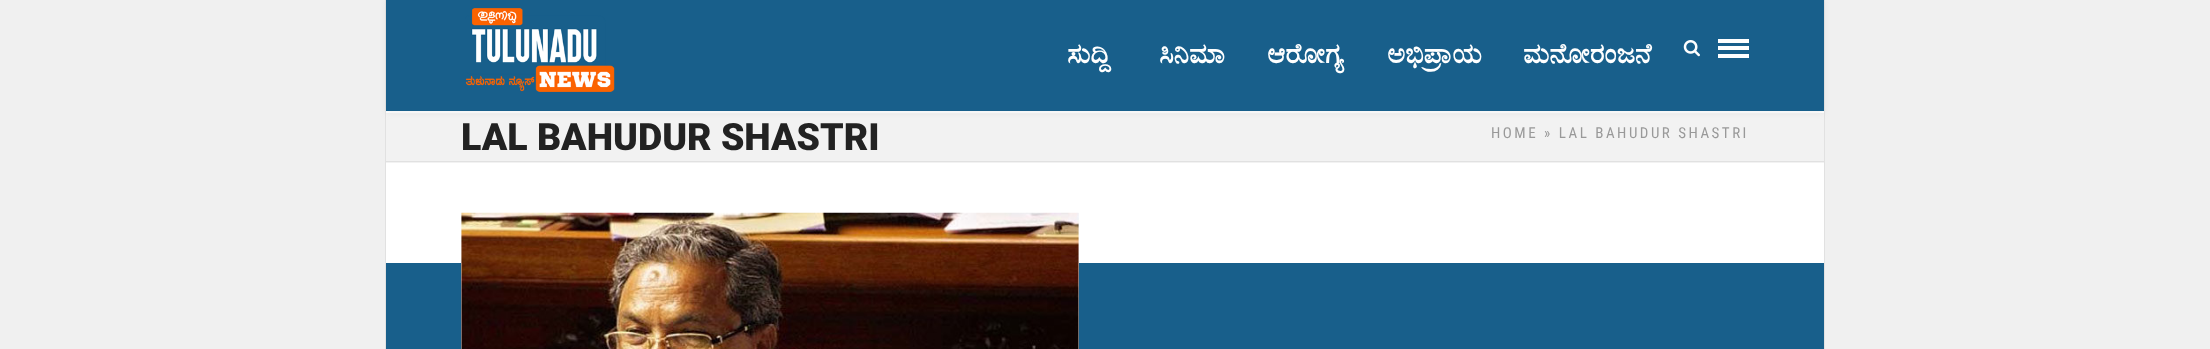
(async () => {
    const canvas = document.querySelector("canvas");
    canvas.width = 2210;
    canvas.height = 349;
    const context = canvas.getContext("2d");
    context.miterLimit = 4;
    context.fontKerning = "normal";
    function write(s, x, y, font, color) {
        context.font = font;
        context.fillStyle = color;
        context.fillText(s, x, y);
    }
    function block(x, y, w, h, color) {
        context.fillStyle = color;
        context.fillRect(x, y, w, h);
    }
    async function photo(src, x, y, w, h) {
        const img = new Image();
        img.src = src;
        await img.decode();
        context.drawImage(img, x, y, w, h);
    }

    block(0, 0, 2210, 349, "rgb(240, 240, 240)");
    block(386, 111, 1438, 152, "rgb(255, 255, 255)");
    context.strokeStyle = "rgb(225, 225, 225)";
    context.strokeRect(385.5, 0.5, 1439, 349);
    block(386, 113, 1438, 50, "rgb(242, 242, 242)");
    context.fillStyle = "rgba(190, 190, 190, 0.2)";
    context.filter = "blur(3px)";
    context.beginPath();
    context.rect(386, 1, 1438, 112);
    context.fill();
    context.filter = "none";
    block(386, 0, 1438, 111, "rgb(24, 95, 139)");
    await photo("media/1.png", 465, 8, 150, 84);
    write("ಸುದ್ದಿ", 1067, 63, "bold 27.5px FreeSerif", "rgb(255, 255, 255)");
    write("ಸಿನಿಮಾ", 1159, 63, "bold 27.5px FreeSerif", "rgb(255, 255, 255)");
    write("ಆರೋಗ್ಯ", 1267, 63, "bold 27.5px FreeSerif", "rgb(255, 255, 255)");
    write("ಅಭಿಪ್ರಾಯ", 1387, 63, "bold 27.5px FreeSerif", "rgb(255, 255, 255)");
    write("ಮನೋರಂಜನೆ", 1523, 63, "bold 27.5px FreeSerif", "rgb(255, 255, 255)");
    await photo("media/2.png", 1683, 40, 17, 17);
    block(1718, 39, 31, 4, "rgb(255, 255, 255)");
    block(1718, 46, 31, 4, "rgb(255, 255, 255)");
    block(1718, 54, 31, 4, "rgb(255, 255, 255)");
    block(386, 161, 1438, 1, "rgb(225, 225, 225)");
    write("LAL BAHUDUR SHASTRI", 461, 150, "900 37.5px Roboto", "rgb(34, 34, 34)");
    context.letterSpacing = "2.5px";
    write("HOME » LAL BAHUDUR SHASTRI", 1491, 138, "15px Roboto Condensed", "rgb(153, 153, 153)");
    block(386, 263, 1438, 86, "rgb(24, 95, 139)");
    block(461, 213, 618, 136, "rgb(249, 249, 249)");
    await photo("media/3.png", 461, 212, 618, 137);
})();
